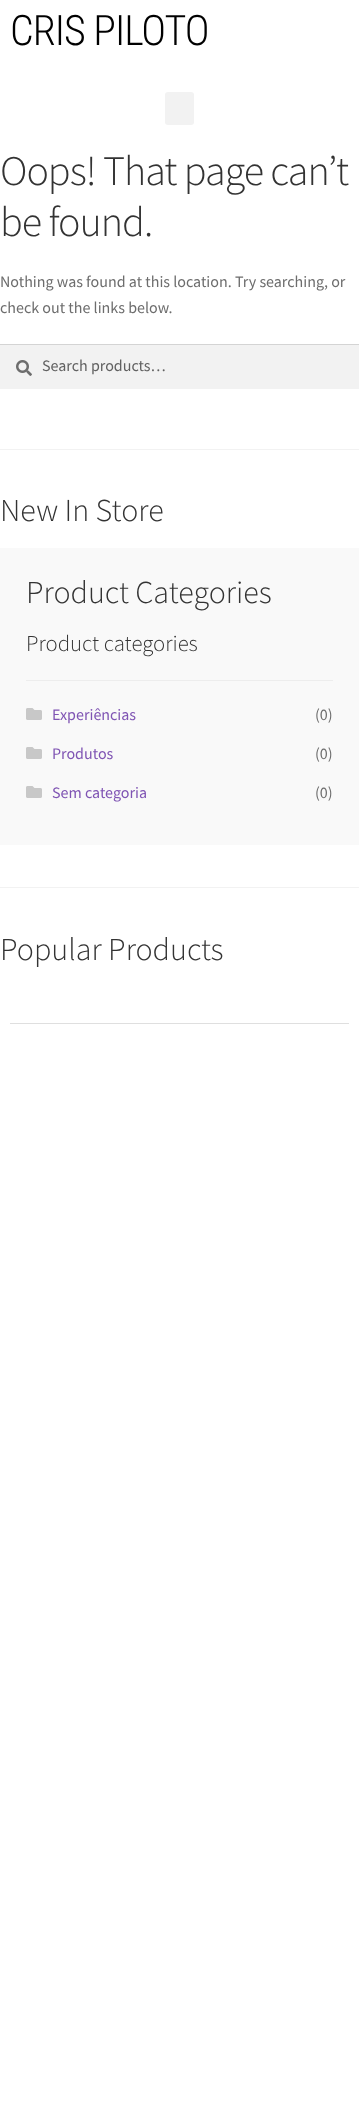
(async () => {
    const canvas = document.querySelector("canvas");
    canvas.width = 359;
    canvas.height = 2113;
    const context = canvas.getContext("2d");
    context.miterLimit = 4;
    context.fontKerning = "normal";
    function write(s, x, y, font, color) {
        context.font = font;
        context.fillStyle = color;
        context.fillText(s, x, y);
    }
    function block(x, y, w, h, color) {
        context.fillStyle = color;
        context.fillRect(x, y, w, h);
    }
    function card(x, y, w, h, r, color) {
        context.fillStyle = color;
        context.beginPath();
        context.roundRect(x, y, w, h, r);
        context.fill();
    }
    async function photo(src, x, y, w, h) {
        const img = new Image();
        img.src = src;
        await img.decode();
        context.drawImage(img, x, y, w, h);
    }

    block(0, 0, 359, 2113, "rgb(255, 255, 255)");
    context.letterSpacing = "-1px";
    write("CRIS PILOTO", 10, 45, "300 42px Roboto Condensed", "rgb(0, 0, 0)");
    card(165, 92, 29, 33, 3, "rgb(242, 242, 242)");
    write("Oops! That page can’t", 0, 185, "300 42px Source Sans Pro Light", "rgb(51, 51, 51)");
    write("be found.", 0, 236, "300 42px Source Sans Pro Light", "rgb(51, 51, 51)");
    context.letterSpacing = "0px";
    write("Nothing was found at this location. Try searching, or", 0, 287, "16px Source Sans Pro", "rgb(109, 109, 109)");
    write("check out the links below.", 0, 313, "16px Source Sans Pro", "rgb(109, 109, 109)");
    block(0, 345, 359, 44, "rgb(242, 242, 242)");
    await photo("media/1.png", 16, 360, 16, 16);
    block(0, 344, 359, 1, "rgb(212, 212, 212)");
    write("Search products…", 42, 371, "16px Source Sans Pro", "rgb(97, 97, 97)");
    block(0, 449, 359, 1, "rgb(242, 242, 242)");
    block(0, 887, 359, 1, "rgb(242, 242, 242)");
    write("New In Store", 0, 521, "300 32px Source Sans Pro Light", "rgb(51, 51, 51)");
    block(0, 548, 359, 297, "rgb(249, 249, 249)");
    write("Product Categories", 26, 603, "300 32px Source Sans Pro Light", "rgb(51, 51, 51)");
    block(26, 680, 307, 1, "rgb(237, 237, 237)");
    write("Product categories", 26, 651, "300 22.75px Source Sans Pro Light", "rgb(51, 51, 51)");
    await photo("media/2.png", 26, 708, 16, 12);
    write("Experiências", 52, 720, "16px Source Sans Pro", "rgb(127, 84, 179)");
    write("(0)", 315, 720, "16px Source Sans Pro", "rgb(109, 109, 109)");
    await photo("media/2.png", 26, 747, 16, 12);
    write("Produtos", 52, 759, "16px Source Sans Pro", "rgb(127, 84, 179)");
    write("(0)", 315, 759, "16px Source Sans Pro", "rgb(109, 109, 109)");
    await photo("media/2.png", 26, 786, 16, 12);
    write("Sem categoria", 52, 798, "16px Source Sans Pro", "rgb(127, 84, 179)");
    write("(0)", 315, 798, "16px Source Sans Pro", "rgb(109, 109, 109)");
    write("Popular Products", 0, 960, "300 32px Source Sans Pro Light", "rgb(51, 51, 51)");
    block(10, 1023, 339, 1, "rgb(223, 223, 223)");
})();
